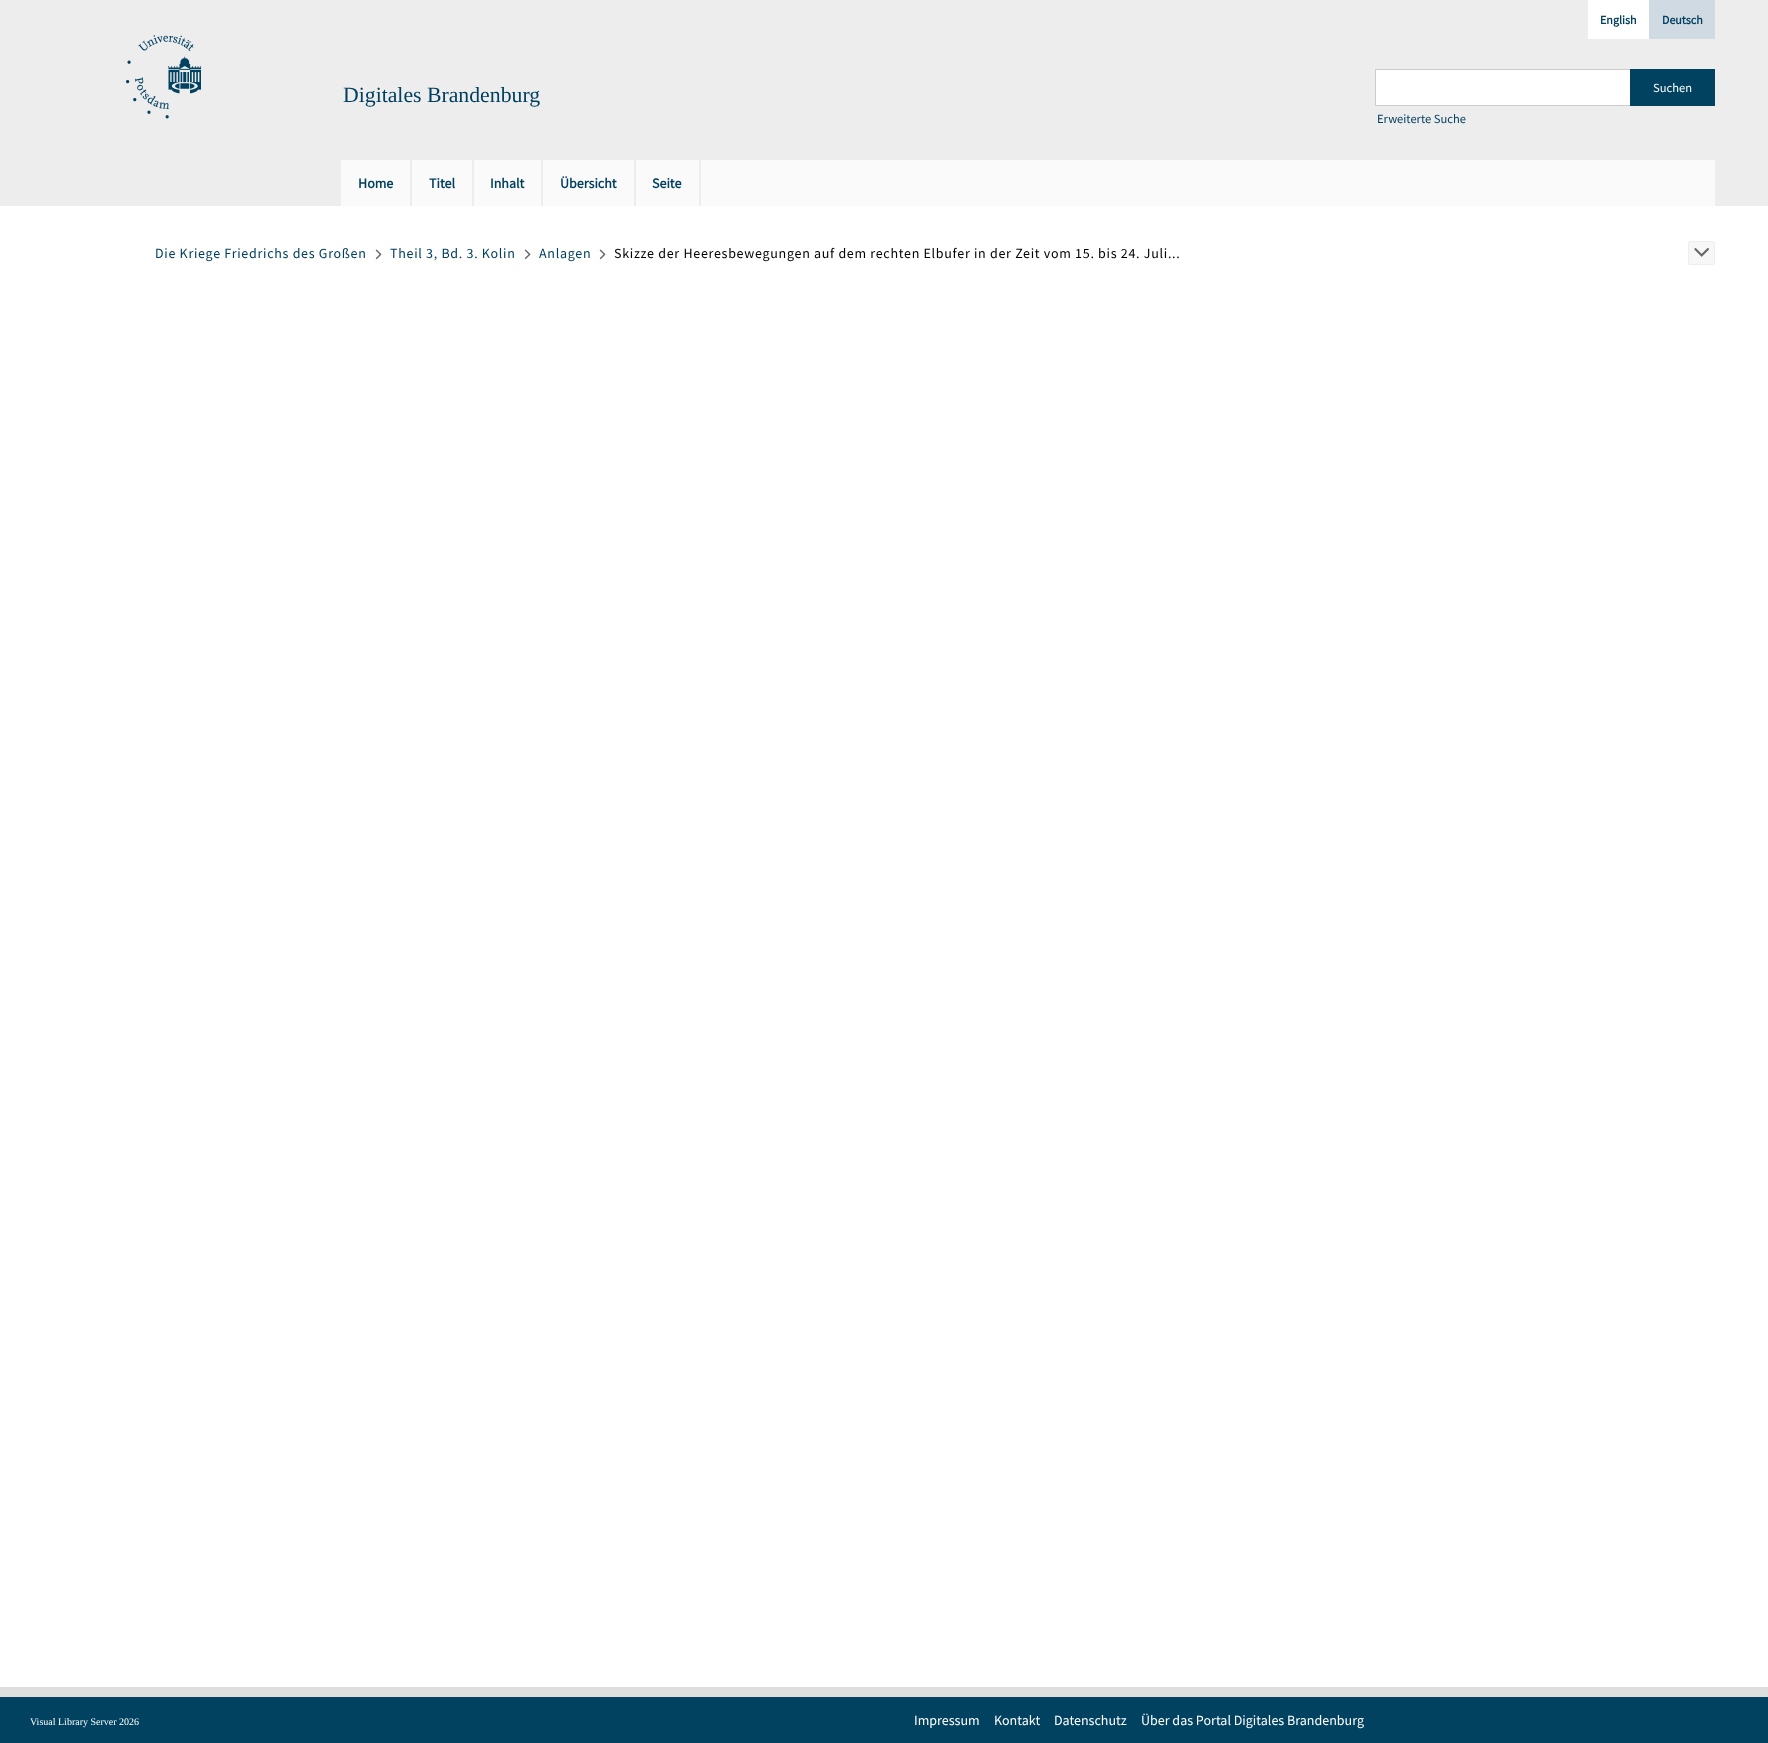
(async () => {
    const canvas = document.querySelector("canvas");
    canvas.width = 1768;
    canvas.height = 1743;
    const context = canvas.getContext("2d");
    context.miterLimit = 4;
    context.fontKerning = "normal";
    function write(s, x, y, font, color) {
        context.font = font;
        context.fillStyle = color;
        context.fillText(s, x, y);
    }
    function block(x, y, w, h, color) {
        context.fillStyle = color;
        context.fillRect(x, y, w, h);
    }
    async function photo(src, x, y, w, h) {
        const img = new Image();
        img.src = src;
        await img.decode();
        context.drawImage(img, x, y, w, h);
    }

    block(0, 0, 1768, 1743, "rgb(255, 255, 255)");
    block(0, 0, 1768, 206, "rgb(237, 237, 237)");
    await photo("media/1.png", 126, 35, 75, 84);
    write("Digitales Brandenburg", 343, 102, "21.75px Liberation Serif", "rgb(0, 63, 96)");
    block(1588, 0, 61, 39, "rgb(255, 255, 255)");
    write("English", 1600, 24, "bold 12px Source Sans Pro", "rgb(0, 63, 96)");
    block(1649, 0, 66, 39, "rgb(207, 218, 227)");
    write("Deutsch", 1662, 24, "bold 12px Source Sans Pro", "rgb(0, 63, 96)");
    context.strokeStyle = "rgb(204, 204, 204)";
    context.strokeRect(1375.5, 69.5, 339, 36);
    block(1376, 70, 254, 35, "rgb(255, 255, 255)");
    block(1630, 69, 85, 37, "rgb(0, 66, 96)");
    write("Suchen", 1653, 92, "12.5px Source Sans Pro", "rgb(255, 255, 255)");
    write("Erweiterte Suche", 1377, 123, "12.5px Source Sans Pro", "rgb(0, 63, 96)");
    block(341, 160, 1374, 46, "rgb(250, 250, 250)");
    block(410, 160, 2, 46, "rgb(237, 237, 237)");
    write("Home", 358, 188, "bold 14px Source Sans Pro", "rgb(0, 63, 96)");
    block(472, 160, 2, 46, "rgb(237, 237, 237)");
    write("Titel", 429, 188, "bold 14px Source Sans Pro", "rgb(0, 63, 96)");
    block(541, 160, 2, 46, "rgb(237, 237, 237)");
    write("Inhalt", 490, 188, "bold 14px Source Sans Pro", "rgb(0, 63, 96)");
    block(634, 160, 2, 46, "rgb(237, 237, 237)");
    write("Übersicht", 560, 188, "bold 14px Source Sans Pro", "rgb(0, 63, 96)");
    block(699, 160, 2, 46, "rgb(237, 237, 237)");
    write("Seite", 652, 188, "bold 14px Source Sans Pro", "rgb(0, 63, 96)");
    context.letterSpacing = "0.7px";
    write("Die Kriege Friedrichs des Großen", 155, 258, "14px Source Sans Pro", "rgb(0, 63, 96)");
    await photo("media/2.png", 375, 249, 7, 11);
    write("Theil 3, Bd. 3. Kolin", 390, 258, "14px Source Sans Pro", "rgb(0, 63, 96)");
    await photo("media/2.png", 524, 249, 7, 11);
    write("Anlagen", 539, 258, "14px Source Sans Pro", "rgb(0, 63, 96)");
    await photo("media/2.png", 599, 249, 7, 11);
    write("Skizze der Heeresbewegungen auf dem rechten Elbufer in der Zeit vom 15. bis 24. Juli...", 614, 258, "14px Source Sans Pro", "rgb(0, 0, 0)");
    context.fillStyle = "rgb(247, 247, 248)";
    context.beginPath();
    context.roundRect(1688.5, 241.5, 26, 23, 1.5);
    context.fill();
    context.strokeStyle = "rgb(238, 238, 238)";
    context.stroke();
    await photo("media/3.png", 1694, 248, 15, 9);
    block(0, 1697, 1768, 46, "rgb(0, 66, 96)");
    block(0, 1687, 1768, 10, "rgb(222, 222, 222)");
    context.letterSpacing = "0px";
    write("Visual Library Server 2026", 30, 1725, "10px Liberation Serif", "rgb(255, 255, 255)");
    write("Impressum", 914, 1725, "14px Source Sans Pro", "rgb(255, 255, 255)");
    write("Kontakt", 994, 1725, "14px Source Sans Pro", "rgb(255, 255, 255)");
    write("Datenschutz", 1054, 1725, "14px Source Sans Pro", "rgb(255, 255, 255)");
    write("Über das Portal Digitales Brandenburg", 1141, 1725, "14px Source Sans Pro", "rgb(255, 255, 255)");
})();
